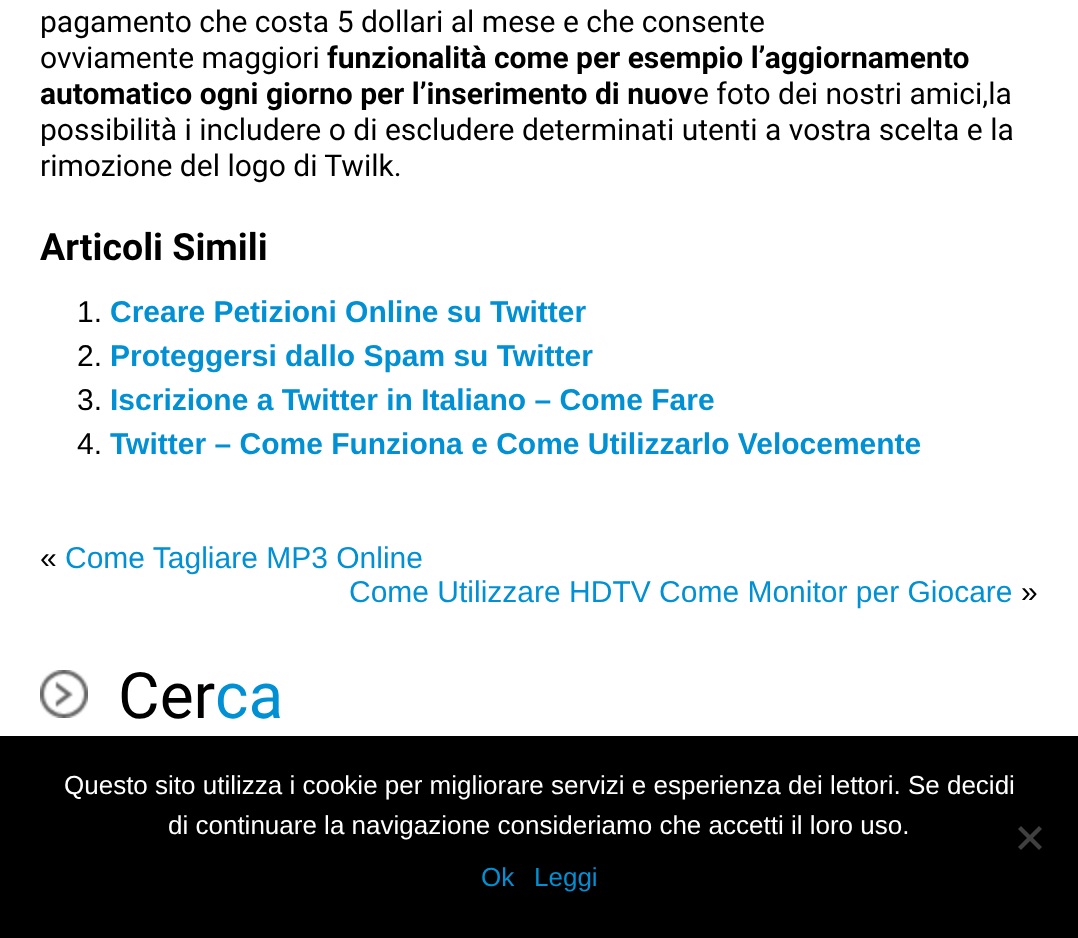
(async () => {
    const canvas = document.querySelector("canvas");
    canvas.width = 1078;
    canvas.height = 938;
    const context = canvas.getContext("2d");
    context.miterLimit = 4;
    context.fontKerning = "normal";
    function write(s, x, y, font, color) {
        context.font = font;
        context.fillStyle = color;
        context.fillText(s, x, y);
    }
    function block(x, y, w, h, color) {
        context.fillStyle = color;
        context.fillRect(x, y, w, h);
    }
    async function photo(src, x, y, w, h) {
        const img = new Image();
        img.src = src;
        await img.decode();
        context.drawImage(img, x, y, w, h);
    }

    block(0, 0, 1078, 938, "rgb(255, 255, 255)");
    write("pagamento che costa 5 dollari al mese e che consente", 40, 32, "30px Roboto", "rgb(0, 0, 0)");
    write("ovviamente maggiori", 40, 68, "30px Roboto", "rgb(0, 0, 0)");
    write("funzionalità come per esempio l’aggiornamento", 327, 68, "bold 30px Roboto", "rgb(0, 0, 0)");
    write("automatico ogni giorno per l’inserimento di nuov", 40, 104, "bold 30px Roboto", "rgb(0, 0, 0)");
    write("e foto dei nostri amici,la", 693, 104, "30px Roboto", "rgb(0, 0, 0)");
    write("possibilità i includere o di escludere determinati utenti a vostra scelta e la", 40, 140, "30px Roboto", "rgb(0, 0, 0)");
    write("rimozione del logo di Twilk.", 40, 176, "30px Roboto", "rgb(0, 0, 0)");
    write("Articoli Simili", 40, 260, "bold 37.5px Roboto", "rgb(0, 0, 0)");
    write("1.", 77, 322, "30px Liberation Sans", "rgb(0, 0, 0)");
    write("Creare Petizioni Online su Twitter", 110, 322, "bold 30px Liberation Sans", "rgb(0, 144, 211)");
    write("2.", 77, 366, "30px Liberation Sans", "rgb(0, 0, 0)");
    write("Proteggersi dallo Spam su Twitter", 110, 366, "bold 30px Liberation Sans", "rgb(0, 144, 211)");
    write("3.", 77, 410, "30px Liberation Sans", "rgb(0, 0, 0)");
    write("Iscrizione a Twitter in Italiano – Come Fare", 110, 410, "bold 30px Liberation Sans", "rgb(0, 144, 211)");
    write("4.", 77, 454, "30px Liberation Sans", "rgb(0, 0, 0)");
    write("Twitter – Come Funziona e Come Utilizzarlo Velocemente", 110, 454, "bold 30px Liberation Sans", "rgb(0, 144, 211)");
    write("«", 40, 568, "30px Liberation Sans", "rgb(0, 0, 0)");
    write("Come Tagliare MP3 Online", 65, 568, "30px Liberation Sans", "rgb(0, 144, 211)");
    write("Come Utilizzare HDTV Come Monitor per Giocare", 349, 602, "30px Liberation Sans", "rgb(0, 144, 211)");
    write("»", 1021, 602, "30px Liberation Sans", "rgb(0, 0, 0)");
    await photo("media/1.png", 40, 670, 48, 48);
    write("Cer", 118, 718, "64px Roboto", "rgb(0, 0, 0)");
    write("ca", 215, 718, "64px Roboto", "rgb(0, 144, 211)");
    block(0, 736, 1078, 202, "rgb(0, 0, 0)");
    write("Questo sito utilizza i cookie per migliorare servizi e esperienza dei lettori. Se decidi", 64, 794, "26px Liberation Sans", "rgb(255, 255, 255)");
    write("di continuare la navigazione consideriamo che accetti il loro uso.", 168, 834, "26px Liberation Sans", "rgb(255, 255, 255)");
    context.fillStyle = "rgb(64, 64, 64)";
    context.beginPath();
    context.moveTo(1039, 826);
    context.lineTo(1042, 829);
    context.lineTo(1021, 850);
    context.lineTo(1018, 847);
    context.closePath();
    context.fill();
    context.beginPath();
    context.moveTo(1018, 829);
    context.lineTo(1021, 826);
    context.lineTo(1042, 847);
    context.lineTo(1039, 850);
    context.closePath();
    context.fill();
    write("Ok", 481, 886, "26px Liberation Sans", "rgb(0, 144, 211)");
    write("Leggi", 534, 886, "26px Liberation Sans", "rgb(0, 144, 211)");
})();
